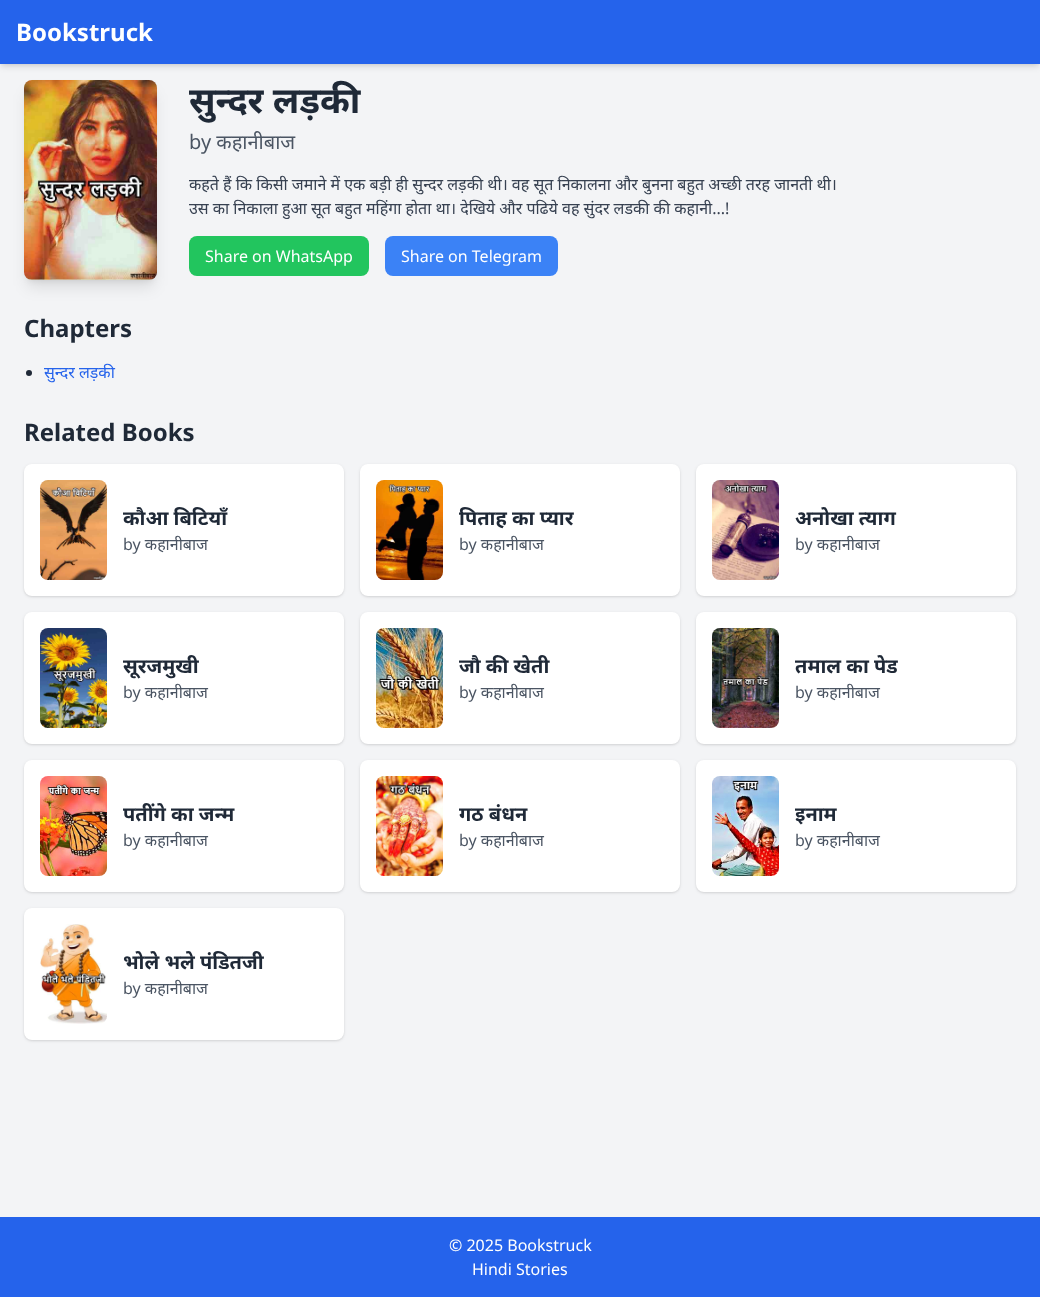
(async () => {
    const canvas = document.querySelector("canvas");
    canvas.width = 1040;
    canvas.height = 1297;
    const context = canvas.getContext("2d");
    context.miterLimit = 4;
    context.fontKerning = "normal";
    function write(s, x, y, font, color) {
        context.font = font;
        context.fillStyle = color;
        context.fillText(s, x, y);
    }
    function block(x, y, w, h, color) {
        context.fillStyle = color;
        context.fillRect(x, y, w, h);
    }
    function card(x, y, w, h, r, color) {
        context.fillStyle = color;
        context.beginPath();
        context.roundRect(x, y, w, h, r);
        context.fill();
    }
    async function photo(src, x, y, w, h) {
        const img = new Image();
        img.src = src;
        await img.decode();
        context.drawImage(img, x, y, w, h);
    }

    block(0, 0, 1040, 1297, "rgb(243, 244, 246)");
    context.fillStyle = "rgba(0, 0, 0, 0.1)";
    context.filter = "blur(2px)";
    context.beginPath();
    context.rect(2, 4, 1036, 60);
    context.fill();
    context.filter = "none";
    context.filter = "blur(3px)";
    context.beginPath();
    context.rect(1, 5, 1038, 62);
    context.fill();
    context.filter = "none";
    block(0, 0, 1040, 64, "rgb(37, 99, 235)");
    write("Bookstruck", 16, 41, "bold 24px Noto Sans", "rgb(255, 255, 255)");
    context.fillStyle = "rgba(0, 0, 0, 0.1)";
    context.filter = "blur(3px)";
    context.beginPath();
    context.roundRect(28, 88, 125, 192, 4);
    context.fill();
    context.filter = "none";
    context.filter = "blur(7.5px)";
    context.beginPath();
    context.roundRect(27, 93, 127, 194, 5);
    context.fill();
    context.filter = "none";
    await photo("media/1.png", 24, 80, 133, 200);
    write("सुन्दर लड़की", 189, 113, "bold 36px Noto Sans", "rgb(31, 41, 55)");
    write("by कहानीबाज", 189, 149, "20px Noto Sans", "rgb(75, 85, 99)");
    write("कहते हैं कि किसी जमाने में एक बड़ी ही सुन्दर लड़की थी। वह सूत निकालना और बुनना बहुत अच्छी तरह जानती थी।", 189, 190, "16px Noto Sans", "rgb(55, 65, 81)");
    write("उस का निकाला हुआ सूत बहुत महिंगा होता था। देखिये और पढिये वह सुंदर लडकी की कहानी...!", 189, 214, "16px Noto Sans", "rgb(55, 65, 81)");
    card(189, 236, 180, 40, 8, "rgb(34, 197, 94)");
    write("Share on WhatsApp", 205, 262, "16px Noto Sans", "rgb(255, 255, 255)");
    card(385, 236, 173, 40, 8, "rgb(59, 130, 246)");
    write("Share on Telegram", 401, 262, "16px Noto Sans", "rgb(255, 255, 255)");
    write("Chapters", 24, 337, "bold 24px Noto Sans", "rgb(31, 41, 55)");
    context.beginPath();
    context.arc(29, 373, 3, 0, Math.PI * 2);
    context.fill();
    write("सुन्दर लड़की", 44, 378, "16px Noto Sans", "rgb(37, 99, 235)");
    write("Related Books", 24, 441, "bold 24px Noto Sans", "rgb(31, 41, 55)");
    context.fillStyle = "rgba(0, 0, 0, 0.1)";
    context.filter = "blur(1px)";
    context.beginPath();
    context.roundRect(25, 466, 318, 130, 7);
    context.fill();
    context.filter = "none";
    context.filter = "blur(1.5px)";
    context.beginPath();
    context.roundRect(24, 465, 320, 132, 8);
    context.fill();
    context.filter = "none";
    card(24, 464, 320, 132, 8, "rgb(255, 255, 255)");
    await photo("media/2.png", 40, 480, 67, 100);
    write("कौआ बिटियाँ", 123, 525, "bold 20px Noto Sans", "rgb(31, 41, 55)");
    write("by कहानीबाज", 123, 550, "16px Noto Sans", "rgb(75, 85, 99)");
    context.fillStyle = "rgba(0, 0, 0, 0.1)";
    context.filter = "blur(1px)";
    context.beginPath();
    context.roundRect(361, 466, 318, 130, 7);
    context.fill();
    context.filter = "none";
    context.filter = "blur(1.5px)";
    context.beginPath();
    context.roundRect(360, 465, 320, 132, 8);
    context.fill();
    context.filter = "none";
    card(360, 464, 320, 132, 8, "rgb(255, 255, 255)");
    await photo("media/3.png", 376, 480, 67, 100);
    write("पिताह का प्यार", 459, 525, "bold 20px Noto Sans", "rgb(31, 41, 55)");
    write("by कहानीबाज", 459, 550, "16px Noto Sans", "rgb(75, 85, 99)");
    context.fillStyle = "rgba(0, 0, 0, 0.1)";
    context.filter = "blur(1px)";
    context.beginPath();
    context.roundRect(697, 466, 318, 130, 7);
    context.fill();
    context.filter = "none";
    context.filter = "blur(1.5px)";
    context.beginPath();
    context.roundRect(696, 465, 320, 132, 8);
    context.fill();
    context.filter = "none";
    card(696, 464, 320, 132, 8, "rgb(255, 255, 255)");
    await photo("media/4.png", 712, 480, 67, 100);
    write("अनोखा त्याग", 795, 525, "bold 20px Noto Sans", "rgb(31, 41, 55)");
    write("by कहानीबाज", 795, 550, "16px Noto Sans", "rgb(75, 85, 99)");
    context.fillStyle = "rgba(0, 0, 0, 0.1)";
    context.filter = "blur(1px)";
    context.beginPath();
    context.roundRect(25, 614, 318, 130, 7);
    context.fill();
    context.filter = "none";
    context.filter = "blur(1.5px)";
    context.beginPath();
    context.roundRect(24, 613, 320, 132, 8);
    context.fill();
    context.filter = "none";
    card(24, 612, 320, 132, 8, "rgb(255, 255, 255)");
    await photo("media/5.png", 40, 628, 67, 100);
    write("सूरजमुखी", 123, 673, "bold 20px Noto Sans", "rgb(31, 41, 55)");
    write("by कहानीबाज", 123, 698, "16px Noto Sans", "rgb(75, 85, 99)");
    context.fillStyle = "rgba(0, 0, 0, 0.1)";
    context.filter = "blur(1px)";
    context.beginPath();
    context.roundRect(361, 614, 318, 130, 7);
    context.fill();
    context.filter = "none";
    context.filter = "blur(1.5px)";
    context.beginPath();
    context.roundRect(360, 613, 320, 132, 8);
    context.fill();
    context.filter = "none";
    card(360, 612, 320, 132, 8, "rgb(255, 255, 255)");
    await photo("media/6.png", 376, 628, 67, 100);
    write("जौ की खेती", 459, 673, "bold 20px Noto Sans", "rgb(31, 41, 55)");
    write("by कहानीबाज", 459, 698, "16px Noto Sans", "rgb(75, 85, 99)");
    context.fillStyle = "rgba(0, 0, 0, 0.1)";
    context.filter = "blur(1px)";
    context.beginPath();
    context.roundRect(697, 614, 318, 130, 7);
    context.fill();
    context.filter = "none";
    context.filter = "blur(1.5px)";
    context.beginPath();
    context.roundRect(696, 613, 320, 132, 8);
    context.fill();
    context.filter = "none";
    card(696, 612, 320, 132, 8, "rgb(255, 255, 255)");
    await photo("media/7.png", 712, 628, 67, 100);
    write("तमाल का पेड", 795, 673, "bold 20px Noto Sans", "rgb(31, 41, 55)");
    write("by कहानीबाज", 795, 698, "16px Noto Sans", "rgb(75, 85, 99)");
    context.fillStyle = "rgba(0, 0, 0, 0.1)";
    context.filter = "blur(1px)";
    context.beginPath();
    context.roundRect(25, 762, 318, 130, 7);
    context.fill();
    context.filter = "none";
    context.filter = "blur(1.5px)";
    context.beginPath();
    context.roundRect(24, 761, 320, 132, 8);
    context.fill();
    context.filter = "none";
    card(24, 760, 320, 132, 8, "rgb(255, 255, 255)");
    await photo("media/8.png", 40, 776, 67, 100);
    write("पतींगे का जन्म", 123, 821, "bold 20px Noto Sans", "rgb(31, 41, 55)");
    write("by कहानीबाज", 123, 846, "16px Noto Sans", "rgb(75, 85, 99)");
    context.fillStyle = "rgba(0, 0, 0, 0.1)";
    context.filter = "blur(1px)";
    context.beginPath();
    context.roundRect(361, 762, 318, 130, 7);
    context.fill();
    context.filter = "none";
    context.filter = "blur(1.5px)";
    context.beginPath();
    context.roundRect(360, 761, 320, 132, 8);
    context.fill();
    context.filter = "none";
    card(360, 760, 320, 132, 8, "rgb(255, 255, 255)");
    await photo("media/9.png", 376, 776, 67, 100);
    write("गठ बंधन", 459, 821, "bold 20px Noto Sans", "rgb(31, 41, 55)");
    write("by कहानीबाज", 459, 846, "16px Noto Sans", "rgb(75, 85, 99)");
    context.fillStyle = "rgba(0, 0, 0, 0.1)";
    context.filter = "blur(1px)";
    context.beginPath();
    context.roundRect(697, 762, 318, 130, 7);
    context.fill();
    context.filter = "none";
    context.filter = "blur(1.5px)";
    context.beginPath();
    context.roundRect(696, 761, 320, 132, 8);
    context.fill();
    context.filter = "none";
    card(696, 760, 320, 132, 8, "rgb(255, 255, 255)");
    await photo("media/10.png", 712, 776, 67, 100);
    write("इनाम", 795, 821, "bold 20px Noto Sans", "rgb(31, 41, 55)");
    write("by कहानीबाज", 795, 846, "16px Noto Sans", "rgb(75, 85, 99)");
    context.fillStyle = "rgba(0, 0, 0, 0.1)";
    context.filter = "blur(1px)";
    context.beginPath();
    context.roundRect(25, 910, 318, 130, 7);
    context.fill();
    context.filter = "none";
    context.filter = "blur(1.5px)";
    context.beginPath();
    context.roundRect(24, 909, 320, 132, 8);
    context.fill();
    context.filter = "none";
    card(24, 908, 320, 132, 8, "rgb(255, 255, 255)");
    await photo("media/11.png", 40, 924, 67, 100);
    write("भोले भले पंडितजी", 123, 969, "bold 20px Noto Sans", "rgb(31, 41, 55)");
    write("by कहानीबाज", 123, 994, "16px Noto Sans", "rgb(75, 85, 99)");
    block(0, 1217, 1040, 80, "rgb(37, 99, 235)");
    write("© 2025 Bookstruck", 449, 1251, "16px Noto Sans", "rgb(255, 255, 255)");
    write("Hindi Stories", 472, 1275, "16px Noto Sans", "rgb(255, 255, 255)");
})();
